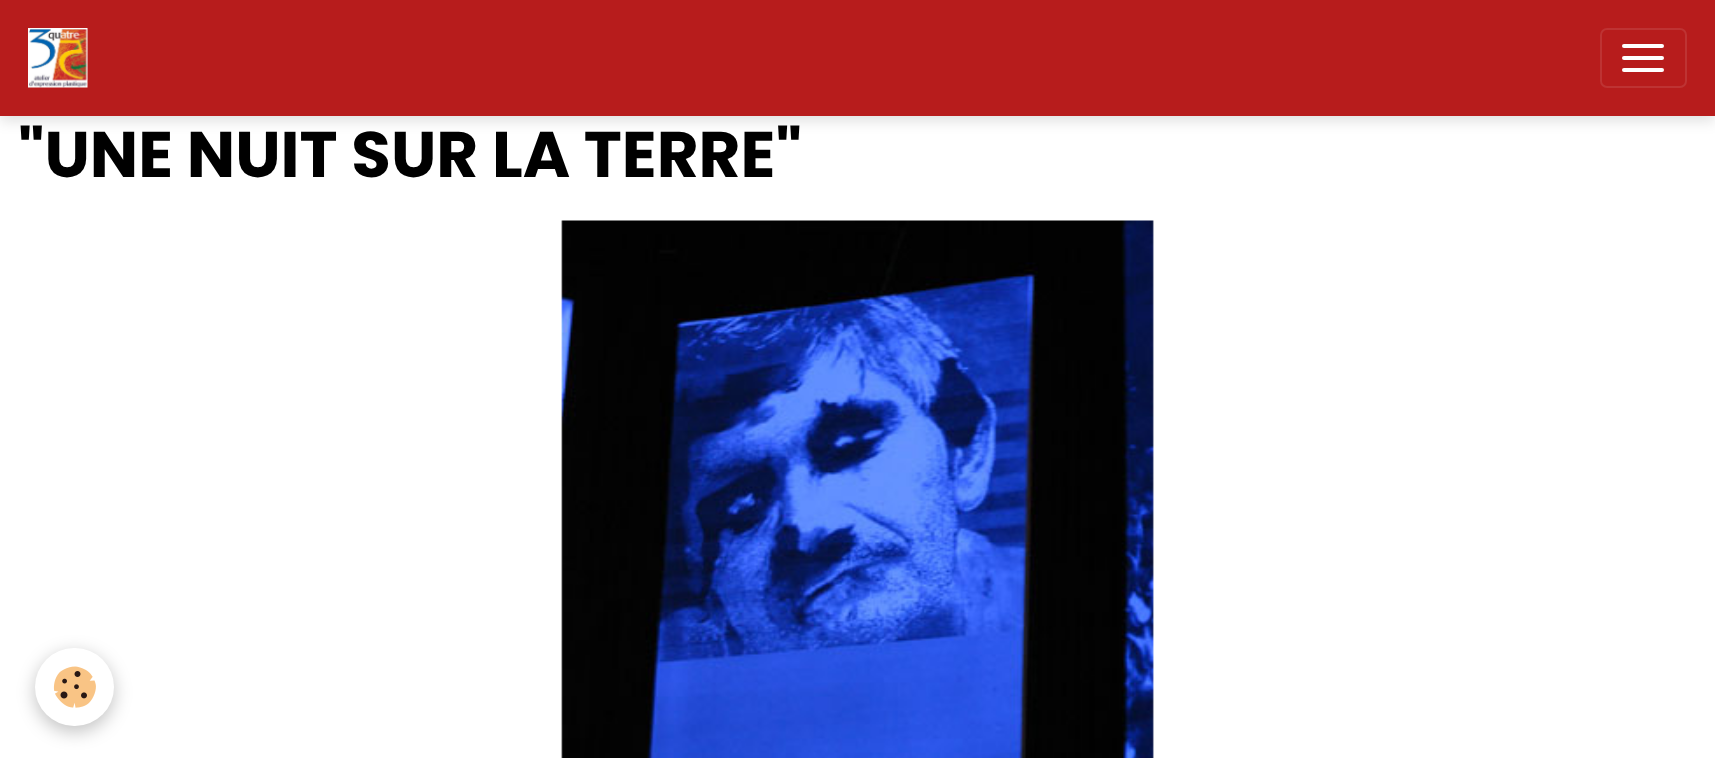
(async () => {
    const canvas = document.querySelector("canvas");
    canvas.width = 1715;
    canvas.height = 758;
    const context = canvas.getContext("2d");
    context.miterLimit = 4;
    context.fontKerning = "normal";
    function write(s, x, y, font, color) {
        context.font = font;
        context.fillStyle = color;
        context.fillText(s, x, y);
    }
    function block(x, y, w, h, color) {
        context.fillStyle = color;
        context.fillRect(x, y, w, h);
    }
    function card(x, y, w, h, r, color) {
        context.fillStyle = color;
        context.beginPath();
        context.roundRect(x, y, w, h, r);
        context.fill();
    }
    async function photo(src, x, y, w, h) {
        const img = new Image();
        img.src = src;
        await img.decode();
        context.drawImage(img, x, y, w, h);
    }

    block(0, 0, 1715, 758, "rgb(255, 255, 255)");
    context.fillStyle = "rgba(0, 0, 0, 0.12)";
    context.filter = "blur(7px)";
    context.beginPath();
    context.rect(0, 5, 1715, 116);
    context.fill();
    context.filter = "none";
    block(0, 0, 1715, 116, "rgb(183, 28, 28)");
    await photo("media/1.png", 28, 28, 60, 60);
    context.beginPath();
    context.roundRect(1601, 29, 85, 58, 6);
    context.strokeStyle = "rgb(190, 51, 51)";
    context.lineWidth = 2;
    context.stroke();
    card(1622, 44, 42, 4, 2, "rgb(255, 255, 255)");
    card(1622, 56, 42, 4, 2, "rgb(255, 255, 255)");
    card(1622, 68, 42, 4, 2, "rgb(255, 255, 255)");
    write("\"UNE NUIT SUR LA TERRE\"", 18, 177, "bold 64.4px Poppins", "rgb(0, 0, 0)");
    await photo("media/2.png", 561, 220, 593, 538);
    context.fillStyle = "rgba(0, 0, 0, 0.24)";
    context.filter = "blur(9px)";
    context.beginPath();
    context.roundRect(35, 653, 79, 79, 39.5);
    context.fill();
    context.filter = "none";
    card(35, 648, 79, 78, 39, "rgb(255, 255, 255)");
    await photo("media/3.png", 53, 666, 43, 42);
})();
